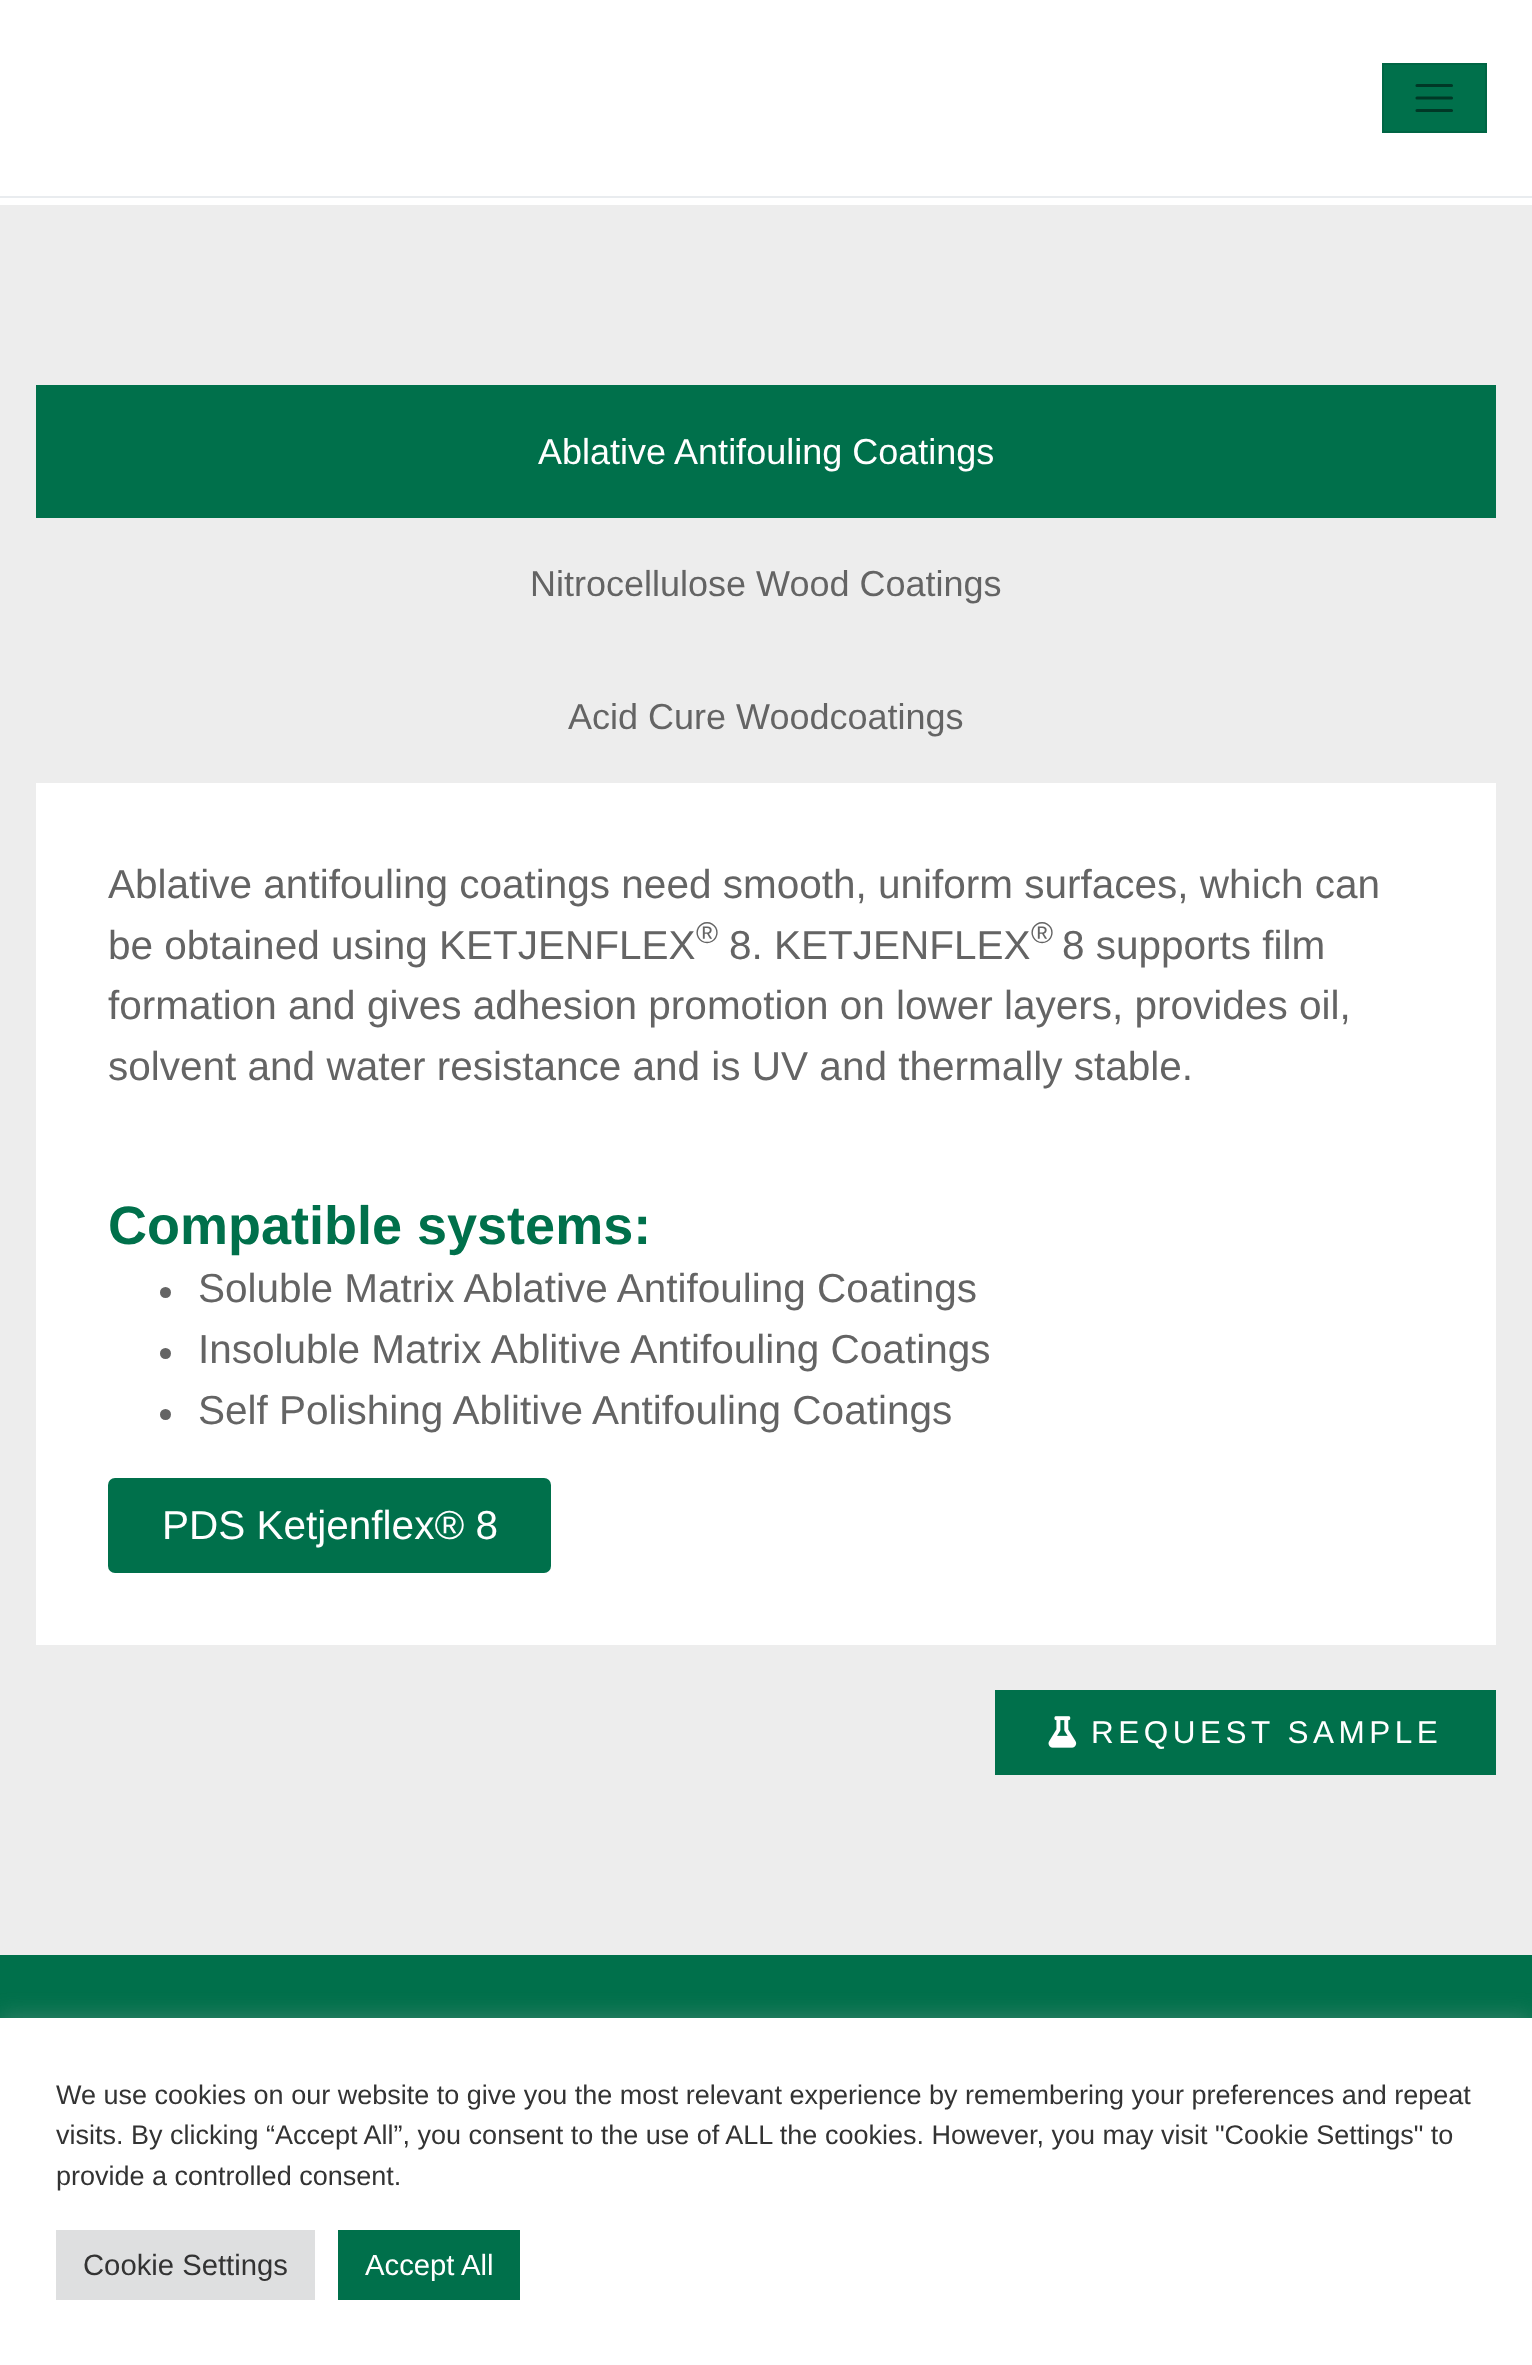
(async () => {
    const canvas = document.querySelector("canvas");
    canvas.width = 1532;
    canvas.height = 2365;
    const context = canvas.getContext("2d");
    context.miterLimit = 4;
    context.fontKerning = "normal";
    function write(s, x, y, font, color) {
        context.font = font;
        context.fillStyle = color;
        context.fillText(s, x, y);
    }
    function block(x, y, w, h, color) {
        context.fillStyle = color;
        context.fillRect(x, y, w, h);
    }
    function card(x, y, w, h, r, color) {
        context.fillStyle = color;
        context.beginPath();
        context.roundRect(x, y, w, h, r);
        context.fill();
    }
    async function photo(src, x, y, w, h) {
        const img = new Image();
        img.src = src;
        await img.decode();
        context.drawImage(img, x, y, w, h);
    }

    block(0, 0, 1532, 2365, "rgb(255, 255, 255)");
    block(0, 196, 1532, 2, "rgb(233, 236, 239)");
    context.fillStyle = "rgb(0, 112, 75)";
    context.beginPath();
    context.rect(1383, 64, 103, 68);
    context.fill();
    context.strokeStyle = "rgb(0, 101, 68)";
    context.lineWidth = 2;
    context.stroke();
    context.beginPath();
    context.moveTo(1417, 85.5);
    context.lineTo(1451.5, 85.5);
    context.moveTo(1417, 98);
    context.lineTo(1451.5, 98);
    context.moveTo(1417, 110.5);
    context.lineTo(1451.5, 110.5);
    context.strokeStyle = "rgb(0, 56, 38)";
    context.lineWidth = 3.1;
    context.lineCap = "round";
    context.stroke();
    block(0, 205, 1532, 1750, "rgb(237, 237, 237)");
    block(36, 385, 1460, 133, "rgb(0, 112, 75)");
    write("Ablative Antifouling Coatings", 538, 464, "36px Liberation Sans", "rgb(255, 255, 255)");
    write("Nitrocellulose Wood Coatings", 530, 596, "36px Liberation Sans", "rgb(100, 100, 100)");
    write("Acid Cure Woodcoatings", 568, 729, "36px Liberation Sans", "rgb(100, 100, 100)");
    block(36, 783, 1460, 862, "rgb(255, 255, 255)");
    write("Ablative antifouling coatings need smooth, uniform surfaces, which can", 108, 898, "40.5px Liberation Sans", "rgb(100, 100, 100)");
    write("be obtained using KETJENFLEX", 108, 959, "40.5px Liberation Sans", "rgb(100, 100, 100)");
    write("®", 696, 943, "30px Liberation Sans", "rgb(100, 100, 100)");
    write("8. KETJENFLEX", 729, 959, "40.5px Liberation Sans", "rgb(100, 100, 100)");
    write("®", 1031, 943, "30px Liberation Sans", "rgb(100, 100, 100)");
    write("8 supports film", 1062, 959, "40.5px Liberation Sans", "rgb(100, 100, 100)");
    write("formation and gives adhesion promotion on lower layers, provides oil,", 108, 1019, "40.5px Liberation Sans", "rgb(100, 100, 100)");
    write("solvent and water resistance and is UV and thermally stable.", 108, 1080, "40.5px Liberation Sans", "rgb(100, 100, 100)");
    write("Compatible systems:", 108, 1244, "bold 54px Liberation Sans", "rgb(0, 112, 75)");
    context.fillStyle = "rgb(100, 100, 100)";
    context.beginPath();
    context.arc(165.5, 1292.5, 5.5, 0, Math.PI * 2);
    context.fill();
    write("Soluble Matrix Ablative Antifouling Coatings", 198, 1302, "40.5px Liberation Sans", "rgb(100, 100, 100)");
    context.beginPath();
    context.arc(165.5, 1353.5, 5.5, 0, Math.PI * 2);
    context.fill();
    write("Insoluble Matrix Ablitive Antifouling Coatings", 198, 1363, "40.5px Liberation Sans", "rgb(100, 100, 100)");
    context.beginPath();
    context.arc(165.5, 1414.5, 5.5, 0, Math.PI * 2);
    context.fill();
    write("Self Polishing Ablitive Antifouling Coatings", 198, 1424, "40.5px Liberation Sans", "rgb(100, 100, 100)");
    card(108, 1478, 443, 95, 7, "rgb(0, 112, 75)");
    write("PDS Ketjenflex® 8", 162, 1539, "40.5px Liberation Sans", "rgb(255, 255, 255)");
    block(995, 1690, 501, 85, "rgb(0, 112, 75)");
    await photo("media/1.png", 1048, 1716, 29, 32);
    context.letterSpacing = "4.5px";
    write("REQUEST SAMPLE", 1091, 1743, "31.5px Liberation Sans", "rgb(255, 255, 255)");
    block(0, 1955, 1532, 63, "rgb(0, 112, 75)");
    context.fillStyle = "rgba(172, 171, 171, 0.3)";
    context.filter = "blur(11px)";
    context.beginPath();
    context.rect(0, 2016, 1532, 349);
    context.fill();
    context.filter = "none";
    block(0, 2018, 1532, 347, "rgb(255, 255, 255)");
    context.letterSpacing = "0px";
    write("We use cookies on our website to give you the most relevant experience by remembering your preferences and repeat", 56, 2104, "27px Liberation Sans", "rgb(51, 51, 51)");
    write("visits. By clicking “Accept All”, you consent to the use of ALL the cookies. However, you may visit \"Cookie Settings\" to", 56, 2144, "27px Liberation Sans", "rgb(51, 51, 51)");
    write("provide a controlled consent.", 56, 2185, "27px Liberation Sans", "rgb(51, 51, 51)");
    block(56, 2230, 259, 70, "rgb(222, 223, 224)");
    write("Cookie Settings", 83, 2275, "29.25px Liberation Sans", "rgb(51, 51, 51)");
    block(338, 2230, 182, 70, "rgb(0, 112, 75)");
    write("Accept All", 365, 2275, "29.25px Liberation Sans", "rgb(255, 255, 255)");
})();
